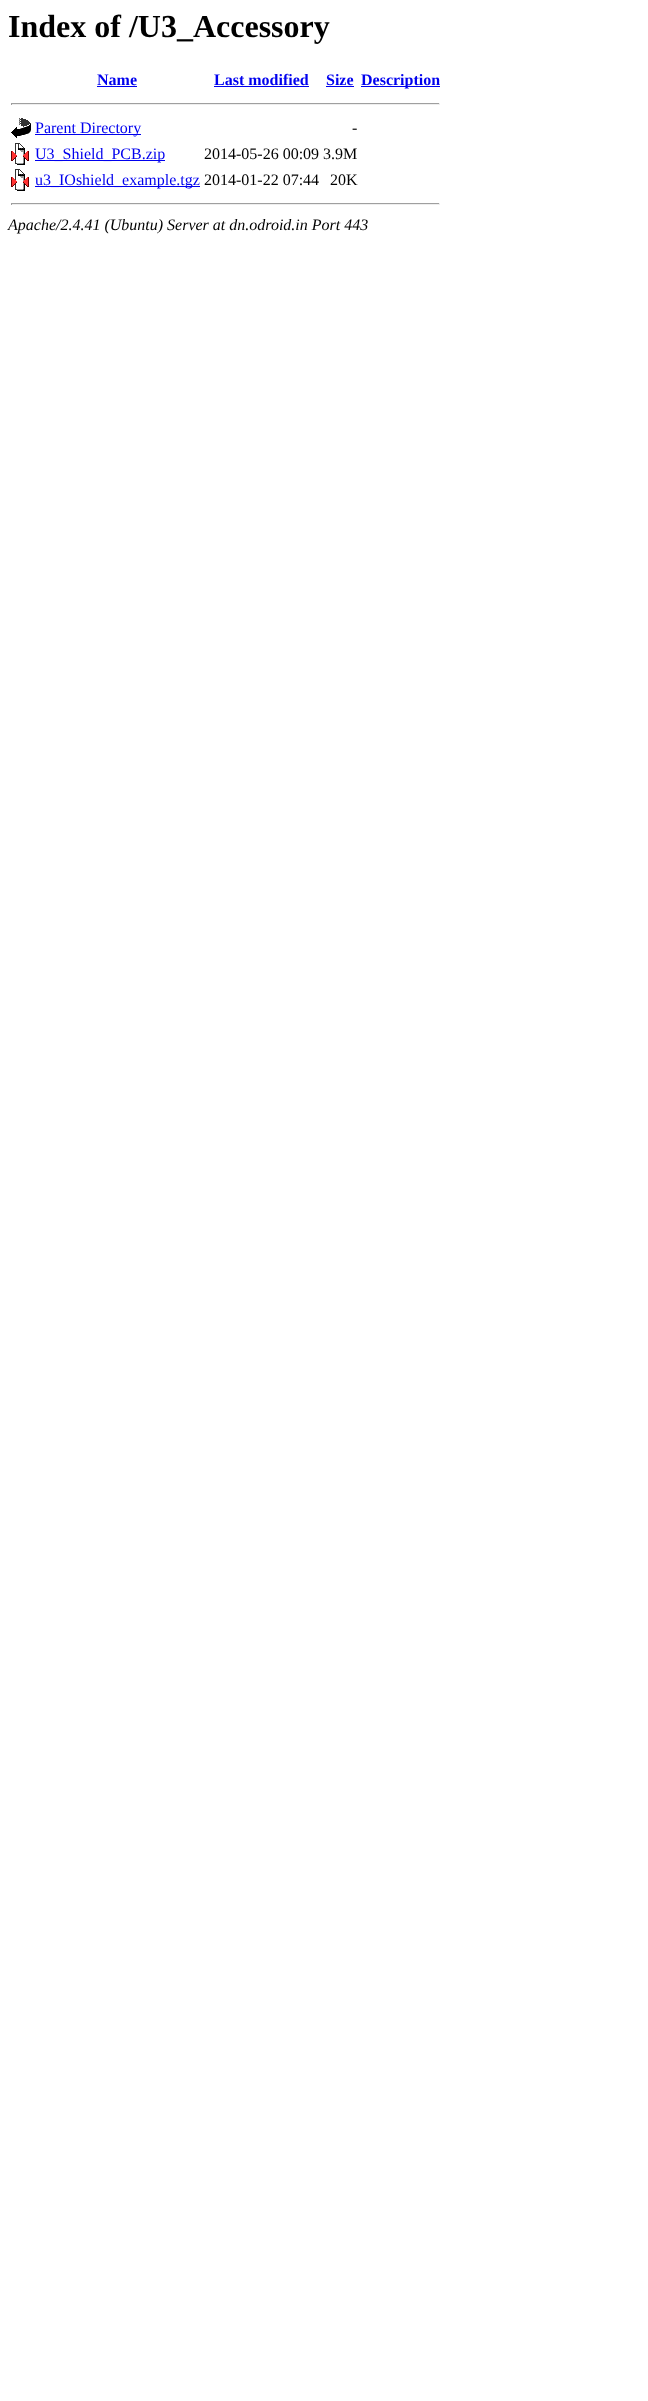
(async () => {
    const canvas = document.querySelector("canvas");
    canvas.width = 648;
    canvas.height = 2401;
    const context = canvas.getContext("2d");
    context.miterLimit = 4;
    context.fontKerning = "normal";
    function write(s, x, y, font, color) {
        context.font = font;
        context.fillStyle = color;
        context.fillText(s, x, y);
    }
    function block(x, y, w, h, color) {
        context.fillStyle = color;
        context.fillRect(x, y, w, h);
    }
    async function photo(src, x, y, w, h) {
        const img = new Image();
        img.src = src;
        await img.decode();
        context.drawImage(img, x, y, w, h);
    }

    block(0, 0, 648, 2401, "rgb(255, 255, 255)");
    write("Index of /U3_Accessory", 8, 37, "bold 32px Liberation Serif", "rgb(0, 0, 0)");
    write("Name", 97, 85, "bold 16px Liberation Serif", "rgb(0, 0, 238)");
    block(97, 86, 40, 1, "rgb(0, 0, 238)");
    write("Last modified", 214, 85, "bold 16px Liberation Serif", "rgb(0, 0, 238)");
    block(214, 86, 95, 1, "rgb(0, 0, 238)");
    write("Size", 326, 85, "bold 16px Liberation Serif", "rgb(0, 0, 238)");
    block(326, 86, 28, 1, "rgb(0, 0, 238)");
    block(361, 86, 79, 1, "rgb(0, 0, 238)");
    write("Description", 361, 85, "bold 16px Liberation Serif", "rgb(0, 0, 238)");
    block(11, 103, 429, 1, "rgb(159, 159, 159)");
    block(439, 103, 1, 2, "rgb(238, 238, 238)");
    block(11, 104, 429, 1, "rgb(238, 238, 238)");
    block(11, 103, 1, 2, "rgb(159, 159, 159)");
    await photo("media/1.png", 11, 118, 20, 20);
    block(35, 134, 106, 1, "rgb(0, 0, 238)");
    write("Parent Directory", 35, 133, "16px Liberation Serif", "rgb(0, 0, 238)");
    write("-", 352, 133, "16px Liberation Serif", "rgb(0, 0, 0)");
    await photo("media/2.png", 11, 143, 18, 22);
    block(35, 160, 130, 1, "rgb(0, 0, 238)");
    write("U3_Shield_PCB.zip", 35, 159, "16px Liberation Serif", "rgb(0, 0, 238)");
    write("2014-05-26 00:09 3.9M", 204, 159, "16px Liberation Serif", "rgb(0, 0, 0)");
    await photo("media/2.png", 11, 169, 18, 22);
    block(35, 186, 165, 1, "rgb(0, 0, 238)");
    write("u3_IOshield_example.tgz", 35, 185, "16px Liberation Serif", "rgb(0, 0, 238)");
    write("2014-01-22 07:44", 204, 185, "16px Liberation Serif", "rgb(0, 0, 0)");
    write("20K", 330, 185, "16px Liberation Serif", "rgb(0, 0, 0)");
    block(11, 203, 429, 1, "rgb(159, 159, 159)");
    block(439, 203, 1, 2, "rgb(238, 238, 238)");
    block(11, 204, 429, 1, "rgb(238, 238, 238)");
    block(11, 203, 1, 2, "rgb(159, 159, 159)");
    write("Apache/2.4.41 (Ubuntu) Server at dn.odroid.in Port 443", 8, 230, "italic 16px Liberation Serif", "rgb(0, 0, 0)");
})();
